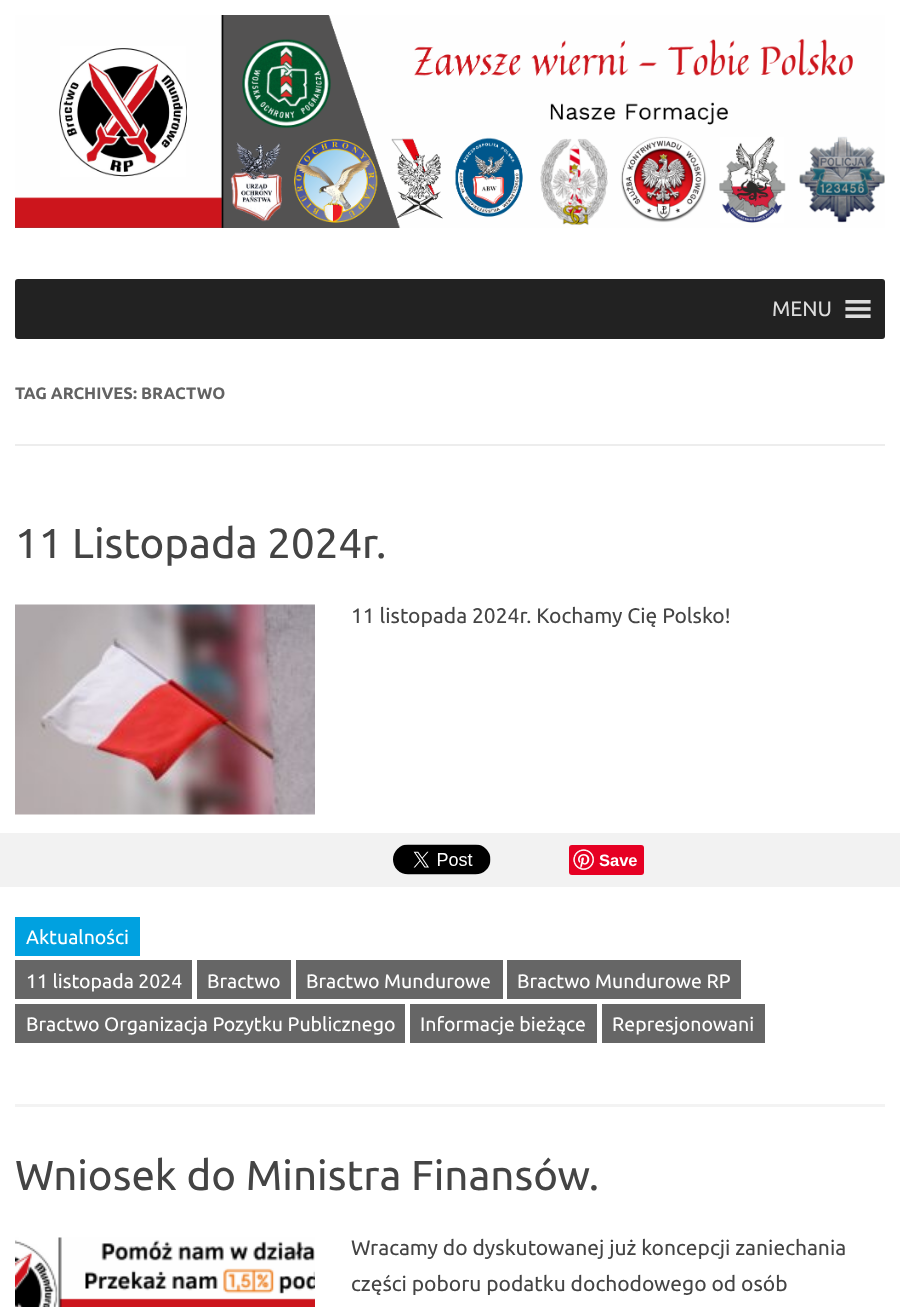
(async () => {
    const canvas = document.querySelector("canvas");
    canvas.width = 900;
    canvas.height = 1307;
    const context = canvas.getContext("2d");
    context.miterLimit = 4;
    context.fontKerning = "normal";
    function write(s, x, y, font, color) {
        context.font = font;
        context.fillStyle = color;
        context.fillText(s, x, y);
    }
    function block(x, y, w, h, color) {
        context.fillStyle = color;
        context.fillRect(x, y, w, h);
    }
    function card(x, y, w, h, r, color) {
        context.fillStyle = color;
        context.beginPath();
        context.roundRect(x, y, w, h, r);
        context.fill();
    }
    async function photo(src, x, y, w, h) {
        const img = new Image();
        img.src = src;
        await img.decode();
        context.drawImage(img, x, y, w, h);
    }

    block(0, 0, 900, 1307, "rgb(255, 255, 255)");
    await photo("media/1.png", 15, 15, 870, 213);
    card(15, 279, 870, 60, 3, "rgb(34, 34, 34)");
    write("MENU", 772, 316, "21px Ubuntu", "rgb(221, 221, 221)");
    await photo("media/2.png", 845, 300, 26, 18);
    block(15, 444, 870, 2, "rgb(237, 237, 237)");
    write("TAG ARCHIVES: BRACTWO", 15, 399, "bold 16.5px Ubuntu", "rgb(99, 99, 99)");
    block(15, 1104, 870, 3, "rgb(243, 243, 243)");
    write("11 Listopada 2024r.", 15, 558, "42px Ubuntu", "rgb(68, 68, 68)");
    await photo("media/3.png", 15, 604, 300, 211);
    write("11 listopada 2024r. Kochamy Cię Polsko!", 351, 623, "21px Ubuntu", "rgb(68, 68, 68)");
    block(0, 833, 900, 54, "rgb(242, 242, 242)");
    await photo("media/4.png", 393, 844, 98, 31);
    card(569, 845, 75, 30, 3, "rgb(230, 0, 35)");
    await photo("media/5.png", 573, 849, 21, 21);
    write("Save", 599, 866, "bold 16.5px Liberation Sans", "rgb(255, 255, 255)");
    block(15, 917, 125, 39, "rgb(0, 161, 224)");
    write("Aktualności", 26, 944, "19.5px Ubuntu", "rgb(255, 255, 255)");
    block(15, 960, 177, 39, "rgb(102, 102, 102)");
    write("11 listopada 2024", 26, 988, "19.5px Ubuntu", "rgb(255, 255, 255)");
    block(197, 960, 94, 39, "rgb(102, 102, 102)");
    write("Bractwo", 207, 988, "19.5px Ubuntu", "rgb(255, 255, 255)");
    block(296, 960, 207, 39, "rgb(102, 102, 102)");
    write("Bractwo Mundurowe", 306, 988, "19.5px Ubuntu", "rgb(255, 255, 255)");
    block(507, 960, 234, 39, "rgb(102, 102, 102)");
    write("Bractwo Mundurowe RP", 517, 988, "19.5px Ubuntu", "rgb(255, 255, 255)");
    block(15, 1004, 390, 39, "rgb(102, 102, 102)");
    write("Bractwo Organizacja Pozytku Publicznego", 26, 1031, "19.5px Ubuntu", "rgb(255, 255, 255)");
    block(410, 1004, 187, 39, "rgb(102, 102, 102)");
    write("Informacje bieżące", 420, 1031, "19.5px Ubuntu", "rgb(255, 255, 255)");
    block(602, 1004, 163, 39, "rgb(102, 102, 102)");
    write("Represjonowani", 612, 1031, "19.5px Ubuntu", "rgb(255, 255, 255)");
    write("Wniosek do Ministra Finansów.", 15, 1190, "42px Ubuntu", "rgb(68, 68, 68)");
    await photo("media/6.png", 15, 1237, 300, 70);
    write("Wracamy do dyskutowanej już koncepcji zaniechania", 351, 1255, "21px Ubuntu", "rgb(68, 68, 68)");
    write("części poboru podatku dochodowego od osób", 351, 1291, "21px Ubuntu", "rgb(68, 68, 68)");
})();
